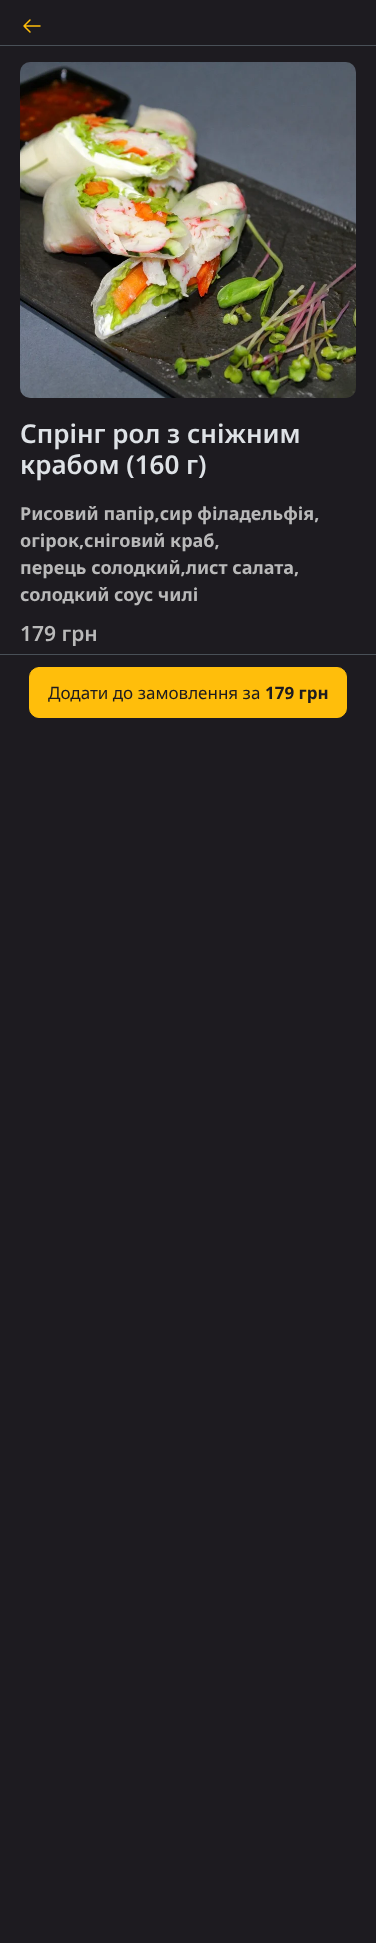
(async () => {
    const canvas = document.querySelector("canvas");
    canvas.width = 376;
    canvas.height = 1943;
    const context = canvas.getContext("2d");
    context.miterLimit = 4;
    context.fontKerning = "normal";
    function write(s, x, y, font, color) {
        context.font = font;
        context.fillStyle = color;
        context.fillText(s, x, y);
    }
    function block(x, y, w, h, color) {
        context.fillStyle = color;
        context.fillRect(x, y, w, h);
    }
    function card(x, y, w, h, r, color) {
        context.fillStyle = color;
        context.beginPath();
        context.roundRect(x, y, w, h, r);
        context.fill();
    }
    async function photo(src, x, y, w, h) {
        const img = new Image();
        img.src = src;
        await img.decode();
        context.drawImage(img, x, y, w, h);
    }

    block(0, 0, 376, 1943, "rgb(29, 27, 32)");
    block(0, 45, 376, 1, "rgb(73, 80, 87)");
    context.beginPath();
    context.moveTo(40, 26);
    context.lineTo(24, 26);
    context.moveTo(24, 26);
    context.lineTo(30, 20);
    context.moveTo(24, 26);
    context.lineTo(30, 32);
    context.strokeStyle = "rgb(255, 190, 11)";
    context.lineWidth = 1.5;
    context.lineCap = "round";
    context.lineJoin = "round";
    context.stroke();
    card(20, 62, 336, 336, 10, "rgb(40, 38, 42)");
    await photo("media/1.png", 20, 62, 336, 336);
    write("Спрінг рол з сніжним", 20, 443, "600 26px Noto Sans", "rgb(222, 226, 230)");
    write("крабом (160 г)", 20, 474, "600 26px Noto Sans", "rgb(222, 226, 230)");
    write("Рисовий папір,сир філадельфія,", 20, 520, "bold 18px Noto Sans", "rgb(185, 185, 185)");
    write("огірок,сніговий краб,", 20, 547, "bold 18px Noto Sans", "rgb(185, 185, 185)");
    write("перець солодкий,лист салата,", 20, 574, "bold 18px Noto Sans", "rgb(185, 185, 185)");
    write("солодкий соус чилі", 20, 601, "bold 18px Noto Sans", "rgb(185, 185, 185)");
    write("179 грн", 20, 641, "600 21px Noto Sans", "rgb(185, 185, 185)");
    block(0, 654, 376, 1, "rgb(73, 80, 87)");
    context.fillStyle = "rgb(255, 190, 11)";
    context.beginPath();
    context.roundRect(29.5, 667.5, 317, 50, 9.5);
    context.fill();
    context.lineWidth = 1;
    context.lineJoin = "miter";
    context.stroke();
    write("Додати до замовлення за", 48, 699, "17px Noto Sans", "rgb(29, 27, 32)");
    write("179 грн", 265, 699, "bold 17px Noto Sans", "rgb(29, 27, 32)");
})();
